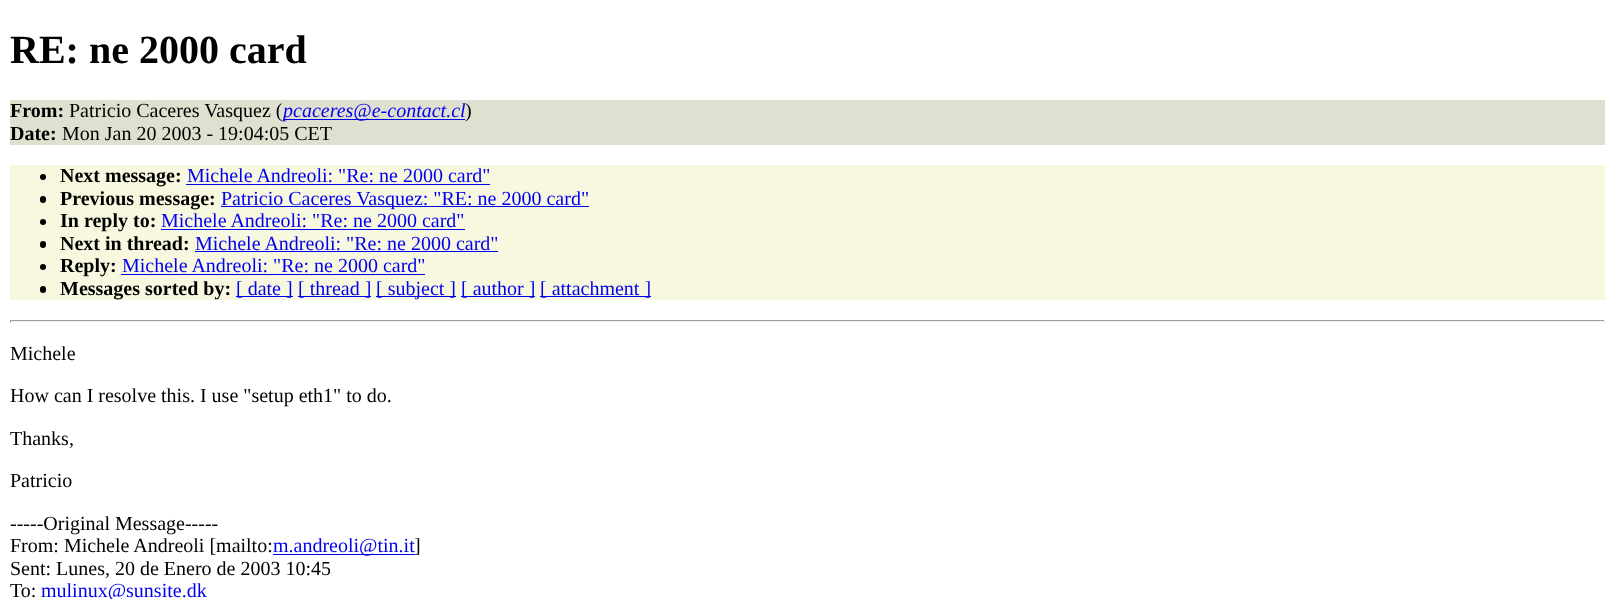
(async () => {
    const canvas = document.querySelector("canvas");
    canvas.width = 1615;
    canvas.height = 599;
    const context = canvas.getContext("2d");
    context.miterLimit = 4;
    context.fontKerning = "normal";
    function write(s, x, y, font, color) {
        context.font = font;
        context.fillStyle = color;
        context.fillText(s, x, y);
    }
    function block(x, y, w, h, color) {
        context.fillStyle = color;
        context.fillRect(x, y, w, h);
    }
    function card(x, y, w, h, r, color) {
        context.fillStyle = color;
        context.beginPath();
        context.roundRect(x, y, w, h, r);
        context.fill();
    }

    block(0, 0, 1615, 599, "rgb(255, 255, 255)");
    write("RE: ne 2000 card", 10, 63, "bold 40px Liberation Serif", "rgb(0, 0, 0)");
    block(10, 100, 1595, 45, "rgb(224, 224, 208)");
    write("From:", 10, 117, "bold 20px Liberation Serif", "rgb(0, 0, 0)");
    write("Patricio Caceres Vasquez (", 69, 117, "20px Liberation Serif", "rgb(0, 0, 0)");
    block(283, 119, 182, 1, "rgb(0, 0, 238)");
    write("pcaceres@e-contact.cl", 283, 117, "italic 20px Liberation Serif", "rgb(0, 0, 238)");
    write(")", 465, 117, "20px Liberation Serif", "rgb(0, 0, 0)");
    write("Date:", 10, 140, "bold 20px Liberation Serif", "rgb(0, 0, 0)");
    write("Mon Jan 20 2003 - 19:04:05 CET", 62, 140, "20px Liberation Serif", "rgb(0, 0, 0)");
    block(10, 165, 1595, 135, "rgb(248, 248, 224)");
    context.fillStyle = "rgb(0, 0, 0)";
    context.beginPath();
    context.arc(43, 177, 3, 0, Math.PI * 2);
    context.fill();
    write("Next message:", 60, 182, "bold 20px Liberation Serif", "rgb(0, 0, 0)");
    write("Michele Andreoli: \"Re: ne 2000 card\"", 187, 182, "20px Liberation Serif", "rgb(0, 0, 238)");
    block(186, 184, 304, 1, "rgb(0, 0, 238)");
    card(40, 196, 6, 7, 3, "rgb(0, 0, 0)");
    write("Previous message:", 60, 205, "bold 20px Liberation Serif", "rgb(0, 0, 0)");
    block(221, 206, 368, 1, "rgb(0, 0, 238)");
    write("Patricio Caceres Vasquez: \"RE: ne 2000 card\"", 221, 205, "20px Liberation Serif", "rgb(0, 0, 238)");
    context.fillStyle = "rgb(0, 0, 0)";
    context.beginPath();
    context.arc(43, 222, 3, 0, Math.PI * 2);
    context.fill();
    write("In reply to:", 60, 227, "bold 20px Liberation Serif", "rgb(0, 0, 0)");
    write("Michele Andreoli: \"Re: ne 2000 card\"", 161, 227, "20px Liberation Serif", "rgb(0, 0, 238)");
    block(161, 229, 304, 1, "rgb(0, 0, 238)");
    card(40, 241, 6, 7, 3, "rgb(0, 0, 0)");
    write("Next in thread:", 60, 250, "bold 20px Liberation Serif", "rgb(0, 0, 0)");
    write("Michele Andreoli: \"Re: ne 2000 card\"", 195, 250, "20px Liberation Serif", "rgb(0, 0, 238)");
    block(195, 251, 303, 1, "rgb(0, 0, 238)");
    context.fillStyle = "rgb(0, 0, 0)";
    context.beginPath();
    context.arc(43, 267, 3, 0, Math.PI * 2);
    context.fill();
    write("Reply:", 60, 272, "bold 20px Liberation Serif", "rgb(0, 0, 0)");
    write("Michele Andreoli: \"Re: ne 2000 card\"", 122, 272, "20px Liberation Serif", "rgb(0, 0, 238)");
    block(121, 274, 304, 1, "rgb(0, 0, 238)");
    card(40, 286, 6, 7, 3, "rgb(0, 0, 0)");
    write("Messages sorted by:", 60, 295, "bold 20px Liberation Serif", "rgb(0, 0, 0)");
    block(236, 296, 57, 1, "rgb(0, 0, 238)");
    write("[ date ]", 236, 295, "20px Liberation Serif", "rgb(0, 0, 238)");
    block(298, 296, 73, 1, "rgb(0, 0, 238)");
    write("[ thread ]", 298, 295, "20px Liberation Serif", "rgb(0, 0, 238)");
    block(376, 296, 80, 1, "rgb(0, 0, 238)");
    write("[ subject ]", 376, 295, "20px Liberation Serif", "rgb(0, 0, 238)");
    block(461, 296, 74, 1, "rgb(0, 0, 238)");
    write("[ author ]", 461, 295, "20px Liberation Serif", "rgb(0, 0, 238)");
    block(540, 296, 111, 1, "rgb(0, 0, 238)");
    write("[ attachment ]", 540, 295, "20px Liberation Serif", "rgb(0, 0, 238)");
    block(10, 320, 1595, 1, "rgb(159, 159, 159)");
    block(1604, 320, 1, 3, "rgb(238, 238, 238)");
    block(10, 321, 1595, 1, "rgb(238, 238, 238)");
    block(10, 320, 1, 3, "rgb(159, 159, 159)");
    write("Michele", 10, 360, "20px Liberation Serif", "rgb(0, 0, 0)");
    write("How can I resolve this. I use \"setup eth1\" to do.", 10, 402, "20px Liberation Serif", "rgb(0, 0, 0)");
    write("Thanks,", 10, 445, "20px Liberation Serif", "rgb(0, 0, 0)");
    write("Patricio", 10, 487, "20px Liberation Serif", "rgb(0, 0, 0)");
    write("-----Original Message-----", 10, 530, "20px Liberation Serif", "rgb(0, 0, 0)");
    write("From: Michele Andreoli [mailto:", 10, 552, "20px Liberation Serif", "rgb(0, 0, 0)");
    block(273, 554, 142, 1, "rgb(0, 0, 238)");
    write("m.andreoli@tin.it", 273, 552, "20px Liberation Serif", "rgb(0, 0, 238)");
    write("]", 414, 552, "20px Liberation Serif", "rgb(0, 0, 0)");
    write("Sent: Lunes, 20 de Enero de 2003 10:45", 10, 575, "20px Liberation Serif", "rgb(0, 0, 0)");
    write("To:", 10, 597, "20px Liberation Serif", "rgb(0, 0, 0)");
    write("mulinux@sunsite.dk", 41, 597, "20px Liberation Serif", "rgb(0, 0, 238)");
})();
